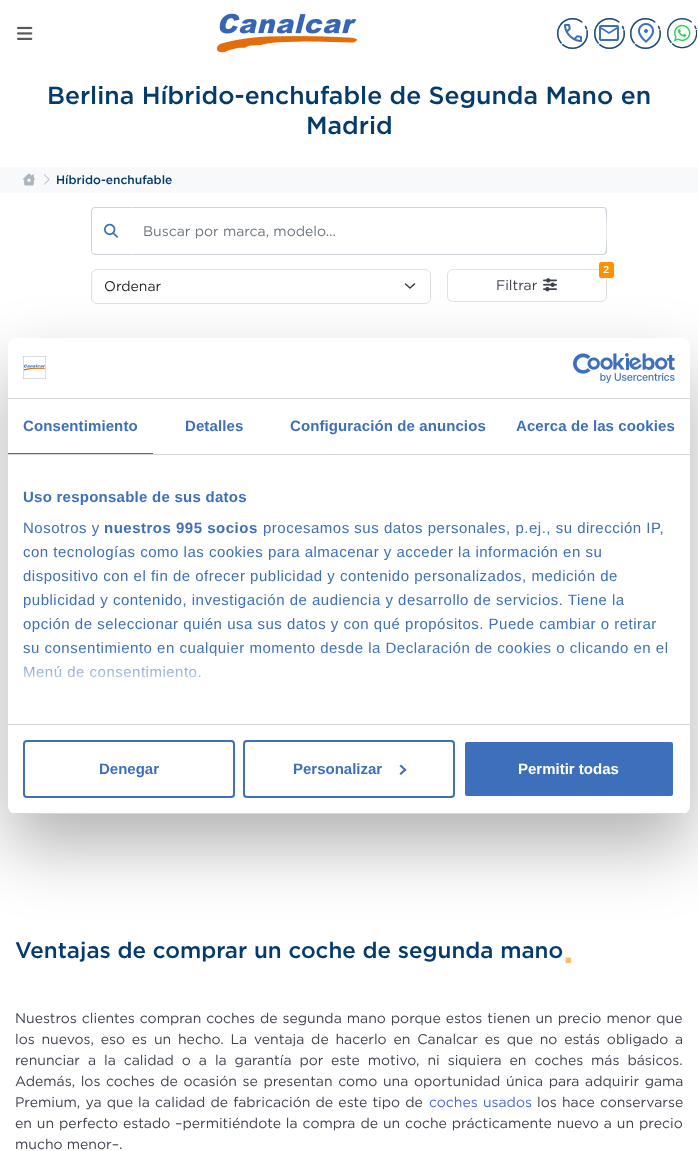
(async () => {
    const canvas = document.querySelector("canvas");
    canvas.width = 698;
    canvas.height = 1151;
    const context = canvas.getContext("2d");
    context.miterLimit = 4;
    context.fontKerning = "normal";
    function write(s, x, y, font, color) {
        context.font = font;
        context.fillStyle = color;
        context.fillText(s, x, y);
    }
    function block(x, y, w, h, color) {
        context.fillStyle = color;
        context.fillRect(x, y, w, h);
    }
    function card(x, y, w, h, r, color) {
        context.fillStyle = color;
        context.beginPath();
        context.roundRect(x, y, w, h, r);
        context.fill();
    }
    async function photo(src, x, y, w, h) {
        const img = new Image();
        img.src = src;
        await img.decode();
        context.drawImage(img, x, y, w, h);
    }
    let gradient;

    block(0, 0, 698, 1151, "rgb(255, 255, 255)");
    await photo("media/1.png", 17, 26, 16, 14);
    await photo("media/2.png", 217, 13, 140, 40);
    await photo("media/3.png", 557, 18, 31, 31);
    await photo("media/4.png", 564, 24, 18, 18);
    await photo("media/3.png", 594, 18, 31, 31);
    await photo("media/5.png", 599, 25, 20, 16);
    await photo("media/3.png", 630, 18, 31, 31);
    await photo("media/6.png", 638, 23, 16, 20);
    await photo("media/7.png", 667, 18, 30, 31);
    await photo("media/8.png", 674, 24, 17, 18);
    write("Berlina Híbrido-enchufable de Segunda Mano en", 47, 104, "500 24.8px Gotham", "rgb(4, 58, 108)");
    write("Madrid", 306, 134, "500 24.8px Gotham", "rgb(4, 58, 108)");
    block(0, 167, 698, 26, "rgb(248, 249, 250)");
    await photo("media/9.png", 23, 173, 12, 13);
    await photo("media/10.png", 44, 174, 6, 11);
    write("Híbrido-enchufable", 56, 184, "500 12px Gotham", "rgb(4, 58, 108)");
    context.beginPath();
    context.roundRect(91.5, 207.5, 40, 47, [3.5, 0, 0, 3.5]);
    context.strokeStyle = "rgb(206, 212, 218)";
    context.stroke();
    await photo("media/11.png", 104, 223, 14, 15);
    context.fillStyle = "rgb(206, 212, 218)";
    context.beginPath();
    context.moveTo(131, 207);
    context.lineTo(132, 208);
    context.lineTo(604, 208);
    context.lineTo(605, 209);
    context.lineTo(606, 208);
    context.lineTo(604, 207);
    context.closePath();
    context.fill();
    context.beginPath();
    context.moveTo(607, 252);
    context.lineTo(607, 210);
    context.lineTo(606, 208);
    context.lineTo(605, 209);
    context.bezierCurveTo(607, 210, 607, 252, 605, 253);
    context.lineTo(606, 254);
    context.closePath();
    context.fill();
    context.beginPath();
    context.moveTo(604, 255);
    context.lineTo(606, 254);
    context.lineTo(605, 253);
    context.lineTo(604, 254);
    context.lineTo(132, 254);
    context.lineTo(131, 255);
    context.closePath();
    context.fill();
    context.fillStyle = "rgb(255, 255, 255)";
    context.beginPath();
    context.moveTo(131, 207);
    context.lineTo(131, 255);
    context.lineTo(132, 254);
    context.lineTo(132, 208);
    context.closePath();
    context.fill();
    write("Buscar por marca, modelo...", 143, 236, "14px Gotham", "rgb(108, 117, 125)");
    context.beginPath();
    context.moveTo(405.5, 284);
    context.lineTo(410, 288);
    context.lineTo(414.5, 284);
    context.strokeStyle = "rgb(52, 58, 64)";
    context.lineWidth = 1.5;
    context.lineCap = "round";
    context.lineJoin = "round";
    context.stroke();
    context.beginPath();
    context.roundRect(91.5, 269.5, 339, 34, 5.5);
    context.strokeStyle = "rgb(222, 226, 230)";
    context.lineWidth = 1;
    context.lineJoin = "miter";
    context.stroke();
    write("Ordenar", 104, 291, "14px Gotham", "rgb(33, 37, 41)");
    context.beginPath();
    context.roundRect(447.5, 269.5, 159, 32, 5.5);
    context.stroke();
    card(599, 262, 15, 16, 2.5, "rgb(255, 145, 0)");
    write("2", 603, 273, "500 10px Gotham", "rgb(255, 255, 255)");
    write("Filtrar", 496, 290, "14px Gotham", "rgb(62, 66, 78)");
    await photo("media/12.png", 543, 278, 14, 14);
    write("Ventajas de comprar un coche de segunda mano", 15, 958, "500 22.4px Gotham", "rgb(4, 58, 108)");
    write(".", 563, 963, "500 39px Gotham", "rgb(254, 186, 97)");
    context.wordSpacing = "0.8px";
    write("Nuestros clientes compran coches de segunda mano porque estos tienen un precio menor que", 15, 1023, "14px Gotham", "rgb(62, 66, 78)");
    context.wordSpacing = "2.6px";
    write("los nuevos, eso es un", 15, 1044, "14px Gotham", "rgb(62, 66, 78)");
    write("hecho. La ventaja de hacerlo en Canalcar es que no estás obligado a", 178, 1044, "14px Gotham", "rgb(62, 66, 78)");
    context.wordSpacing = "3.75px";
    write("renunciar a la calidad o a la garantía por", 15, 1065, "14px Gotham", "rgb(62, 66, 78)");
    write("este motivo, ni siquiera en coches más básicos.", 331, 1065, "14px Gotham", "rgb(62, 66, 78)");
    context.wordSpacing = "1.4px";
    write("Además, los coches de ocasión se presentan como una oportunidad", 15, 1086, "14px Gotham", "rgb(62, 66, 78)");
    write("única para adquirir gama", 506, 1086, "14px Gotham", "rgb(62, 66, 78)");
    context.wordSpacing = "1px";
    write("Premium, ya que la calidad de fabricación de este tipo de", 15, 1107, "14px Gotham", "rgb(62, 66, 78)");
    write("coches usados", 429, 1107, "14px Gotham", "rgb(65, 105, 225)");
    write("los hace conservarse", 537, 1107, "14px Gotham", "rgb(62, 66, 78)");
    context.wordSpacing = "0.75px";
    write("en un perfecto estado", 15, 1128, "14px Gotham", "rgb(62, 66, 78)");
    write("–permitiéndote la compra de un coche prácticamente nuevo a un precio", 175, 1128, "14px Gotham", "rgb(62, 66, 78)");
    context.wordSpacing = "0px";
    write("mucho menor–.", 15, 1149, "14px Gotham", "rgb(62, 66, 78)");
    context.fillStyle = "rgba(0, 0, 0, 0.3)";
    context.filter = "blur(34px)";
    context.beginPath();
    context.roundRect(8, 370, 682, 476, 8);
    context.fill();
    context.filter = "none";
    card(8, 338, 682, 476, 8, "rgb(255, 255, 255)");
    block(8, 398, 682, 1, "rgb(214, 214, 214)");
    await photo("media/13.png", 23, 356, 23, 23);
    await photo("media/14.png", 573, 353, 102, 30);
    block(8, 454, 682, 1, "rgb(214, 214, 214)");
    block(8, 453, 145, 1, "rgb(62, 111, 187)");
    context.letterSpacing = "0.1px";
    write("Consentimiento", 23, 431, "bold 15px Liberation Sans", "rgb(62, 111, 187)");
    write("Detalles", 185, 431, "bold 15px Liberation Sans", "rgb(62, 111, 187)");
    write("Configuración de anuncios", 290, 431, "bold 15px Liberation Sans", "rgb(62, 111, 187)");
    write("Acerca de las cookies", 516, 431, "bold 15px Liberation Sans", "rgb(62, 111, 187)");
    block(8, 724, 682, 1, "rgb(214, 214, 214)");
    context.letterSpacing = "0.25px";
    write("Uso responsable de sus datos", 23, 502, "bold 15px Liberation Sans", "rgb(62, 111, 187)");
    context.letterSpacing = "0.5px";
    write("Nosotros y", 23, 533, "15px Liberation Sans", "rgb(62, 111, 187)");
    write("nuestros 995 socios", 104, 533, "bold 15px Liberation Sans", "rgb(62, 111, 187)");
    write("procesamos sus datos personales, p.ej., su dirección IP,", 263, 533, "15px Liberation Sans", "rgb(62, 111, 187)");
    write("con tecnologías como las cookies para almacenar y acceder la información en su", 23, 557, "15px Liberation Sans", "rgb(62, 111, 187)");
    write("dispositivo con el fin de ofrecer publicidad y contenido personalizados, medición de", 23, 581, "15px Liberation Sans", "rgb(62, 111, 187)");
    write("publicidad y contenido, investigación de audiencia y desarrollo de servicios. Tiene la", 23, 605, "15px Liberation Sans", "rgb(62, 111, 187)");
    write("opción de seleccionar quién usa sus datos y con qué propósitos. Puede cambiar o retirar", 23, 629, "15px Liberation Sans", "rgb(62, 111, 187)");
    write("su consentimiento en cualquier momento desde la Declaración de cookies o clicando en el", 23, 653, "15px Liberation Sans", "rgb(62, 111, 187)");
    write("Menú de consentimiento.", 23, 677, "15px Liberation Sans", "rgb(62, 111, 187)");
    gradient = context.createLinearGradient(343, 724, 343, 649);
    gradient.addColorStop(0, "rgb(255, 255, 255)");
    gradient.addColorStop(0.5, "rgba(255, 255, 255, 0.8)");
    gradient.addColorStop(1, "rgba(255, 255, 255, 0)");
    context.fillStyle = gradient;
    context.fillRect(23, 650, 644, 28);
    context.save();
    context.beginPath();
    context.roundRect(8, 338, 682, 476, 8);
    context.clip();
    block(8, 813, 682, 1, "rgb(214, 214, 214)");
    context.restore();
    context.beginPath();
    context.roundRect(24, 741, 210, 56, 3);
    context.strokeStyle = "rgb(62, 111, 187)";
    context.lineWidth = 2;
    context.stroke();
    context.letterSpacing = "0px";
    write("Denegar", 99, 774, "bold 15px Liberation Sans", "rgb(62, 111, 187)");
    context.beginPath();
    context.roundRect(244, 741, 210, 56, 3);
    context.stroke();
    write("Personalizar", 293, 774, "bold 15px Liberation Sans", "rgb(62, 111, 187)");
    context.beginPath();
    context.moveTo(401, 764.5);
    context.lineTo(406.5, 770);
    context.lineTo(405, 771);
    context.lineTo(399.5, 766);
    context.closePath();
    context.fill();
    context.beginPath();
    context.moveTo(405, 768.5);
    context.lineTo(406.5, 770);
    context.lineTo(401, 775);
    context.lineTo(399.5, 773.5);
    context.closePath();
    context.fill();
    context.beginPath();
    context.roundRect(464, 741, 210, 56, 3);
    context.fill();
    context.strokeStyle = "rgb(255, 255, 255)";
    context.stroke();
    write("Permitir todas", 518, 774, "bold 15px Liberation Sans", "rgb(255, 255, 255)");
})();
